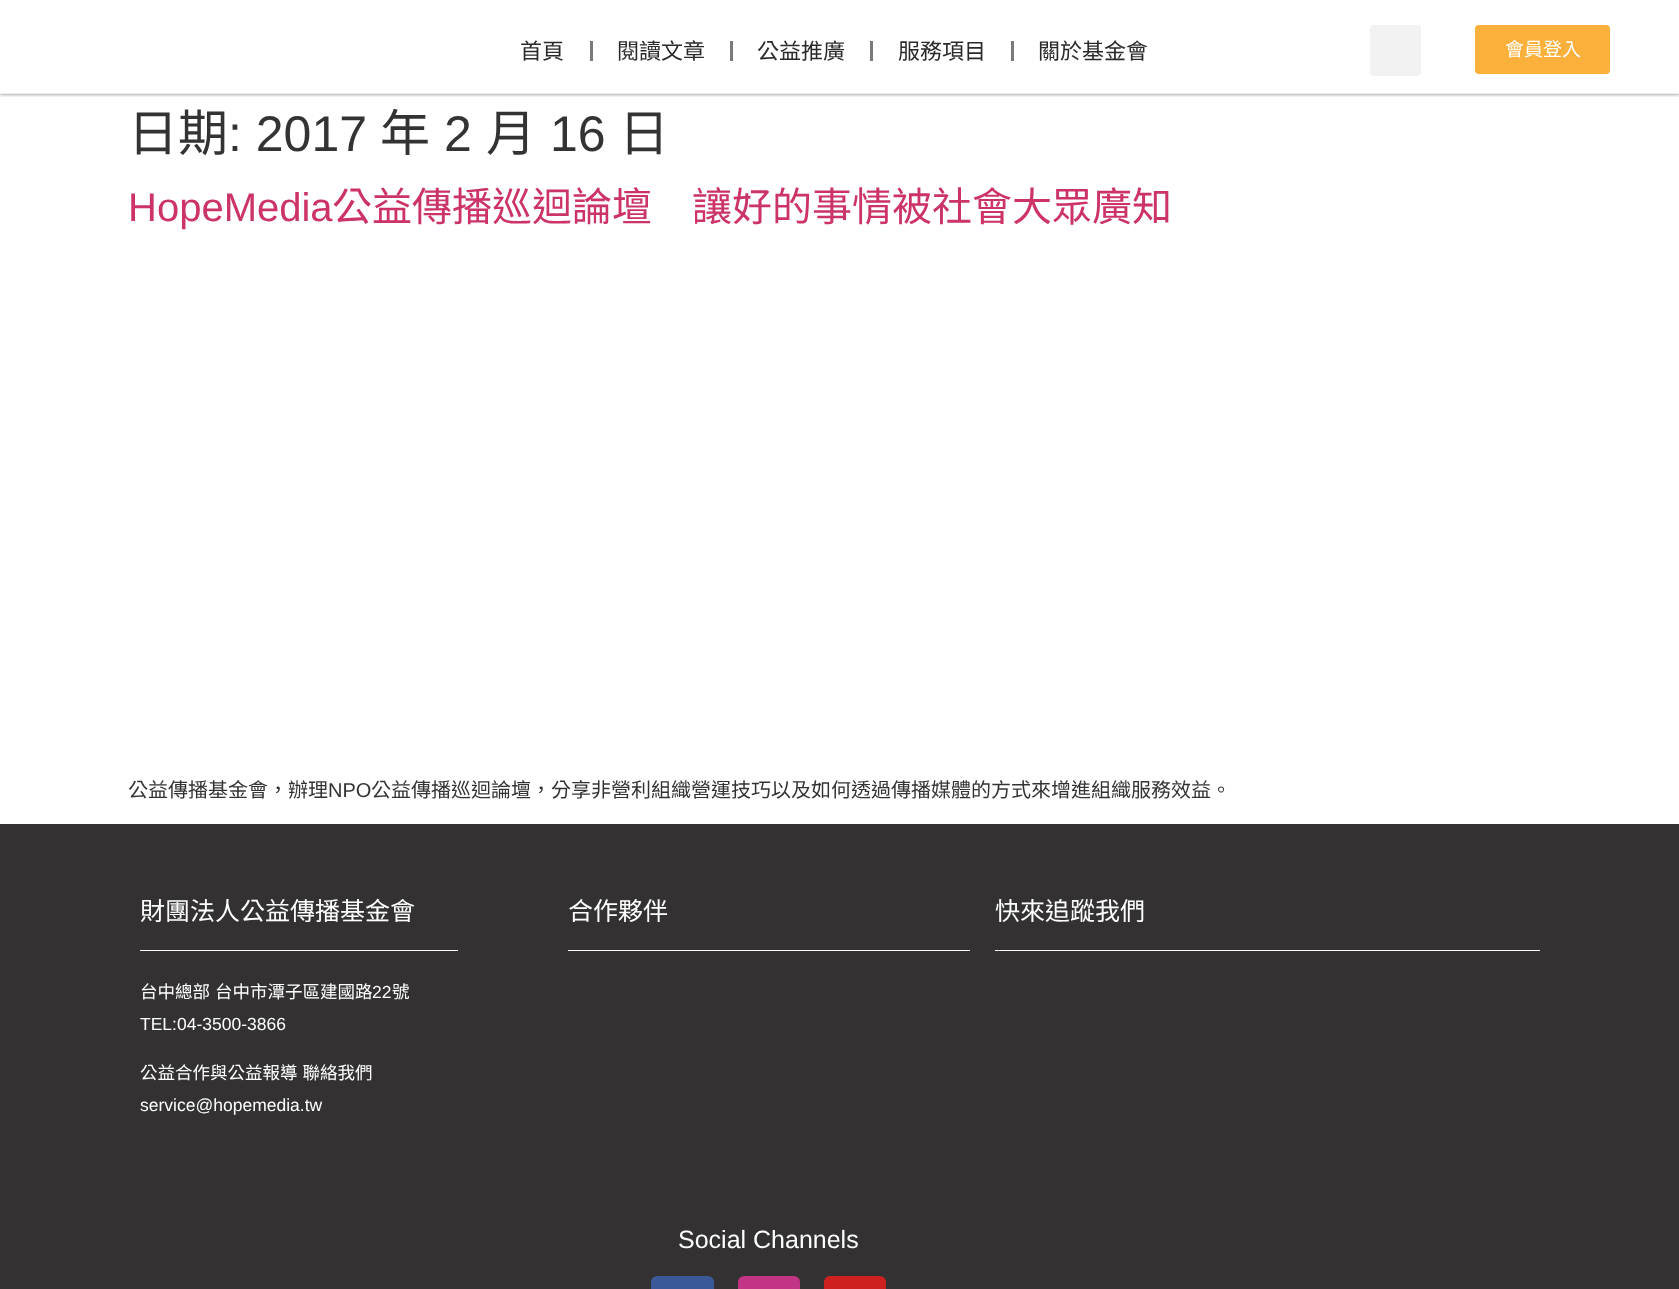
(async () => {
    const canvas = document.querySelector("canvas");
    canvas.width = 1679;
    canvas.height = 1289;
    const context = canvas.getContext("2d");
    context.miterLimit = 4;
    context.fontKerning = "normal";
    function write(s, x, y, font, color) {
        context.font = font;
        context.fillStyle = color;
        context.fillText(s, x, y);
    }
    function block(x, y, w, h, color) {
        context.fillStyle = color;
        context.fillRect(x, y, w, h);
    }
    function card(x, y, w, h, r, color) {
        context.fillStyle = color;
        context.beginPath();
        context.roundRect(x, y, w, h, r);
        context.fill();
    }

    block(0, 0, 1679, 1289, "rgb(255, 255, 255)");
    context.save();
    context.beginPath();
    context.rect(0, 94, 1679, 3);
    context.clip();
    context.fillStyle = "rgba(0, 0, 0, 0.5)";
    context.filter = "blur(2px)";
    context.beginPath();
    context.rect(0, 0, 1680, 94);
    context.fill();
    context.filter = "none";
    context.restore();
    block(0, 93, 1679, 1, "rgb(236, 236, 236)");
    write("首頁", 520, 59, "22px Noto Sans CJK TC", "rgb(42, 42, 42)");
    block(590, 41, 3, 20, "rgb(122, 122, 122)");
    write("閱讀文章", 617, 59, "22px Noto Sans CJK TC", "rgb(42, 42, 42)");
    block(730, 41, 3, 20, "rgb(122, 122, 122)");
    write("公益推廣", 757, 59, "22px Noto Sans CJK TC", "rgb(42, 42, 42)");
    block(870, 41, 3, 20, "rgb(122, 122, 122)");
    write("服務項目", 898, 59, "22px Noto Sans CJK TC", "rgb(42, 42, 42)");
    block(1011, 41, 3, 20, "rgb(122, 122, 122)");
    write("關於基金會", 1038, 59, "22px Noto Sans CJK TC", "rgb(42, 42, 42)");
    card(1370, 25, 51, 51, 4, "rgb(242, 242, 242)");
    card(1475, 25, 135, 49, 4, "rgb(251, 176, 59)");
    write("會員登入", 1505, 56, "19px Noto Sans CJK TC", "rgb(255, 255, 255)");
    write("日期", 128, 151, "50px Noto Sans CJK TC", "rgb(51, 51, 51)");
    write(": 2017", 228, 151, "50px Liberation Sans", "rgb(51, 51, 51)");
    write("年", 380, 151, "50px Noto Sans CJK TC", "rgb(51, 51, 51)");
    write("2", 444, 151, "50px Liberation Sans", "rgb(51, 51, 51)");
    write("月", 486, 151, "50px Noto Sans CJK TC", "rgb(51, 51, 51)");
    write("16", 550, 151, "50px Liberation Sans", "rgb(51, 51, 51)");
    write("日", 619, 151, "50px Noto Sans CJK TC", "rgb(51, 51, 51)");
    write("HopeMedia", 128, 221, "40px Liberation Sans", "rgb(204, 51, 102)");
    write("公益傳播巡迴論壇　讓好的事情被社會大眾廣知", 332, 221, "40px Noto Sans CJK TC", "rgb(204, 51, 102)");
    write("公益傳播基金會，辦理", 128, 797, "20px Noto Sans CJK TC", "rgb(51, 51, 51)");
    write("NPO", 328, 797, "20px Liberation Sans", "rgb(51, 51, 51)");
    write("公益傳播巡迴論壇，分享非營利組織營運技巧以及如何透過傳播媒體的方式來增進組織服務效益。", 371, 797, "20px Noto Sans CJK TC", "rgb(51, 51, 51)");
    block(0, 824, 1679, 465, "rgb(51, 49, 49)");
    write("財團法人公益傳播基金會", 140, 920, "25px Noto Sans CJK TC", "rgb(255, 255, 255)");
    block(140, 950, 318, 1, "rgb(255, 255, 255)");
    context.wordSpacing = "1px";
    write("台中總部 台中市潭子區建國路", 140, 998, "17.5px Noto Sans CJK TC", "rgb(255, 255, 255)");
    context.wordSpacing = "0px";
    write("22", 372, 998, "17.5px Liberation Sans", "rgb(255, 255, 255)");
    write("號", 392, 998, "17.5px Noto Sans CJK TC", "rgb(255, 255, 255)");
    write("TEL:04-3500-3866", 140, 1030, "17.5px Liberation Sans", "rgb(255, 255, 255)");
    context.wordSpacing = "1px";
    write("公益合作與公益報導 聯絡我們", 140, 1079, "17.5px Noto Sans CJK TC", "rgb(255, 255, 255)");
    context.wordSpacing = "0px";
    write("service@hopemedia.tw", 140, 1111, "17.5px Liberation Sans", "rgb(255, 255, 255)");
    write("合作夥伴", 568, 920, "25px Noto Sans CJK TC", "rgb(255, 255, 255)");
    block(568, 950, 402, 1, "rgb(255, 255, 255)");
    write("快來追蹤我們", 995, 920, "25px Noto Sans CJK TC", "rgb(255, 255, 255)");
    block(995, 950, 545, 1, "rgb(255, 255, 255)");
    write("Social Channels", 678, 1248, "25px Liberation Sans", "rgb(255, 255, 255)");
    card(651, 1276, 63, 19, 6, "rgb(59, 89, 152)");
    card(738, 1276, 62, 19, 6, "rgb(193, 53, 132)");
    card(824, 1276, 62, 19, 6, "rgb(205, 32, 31)");
})();
